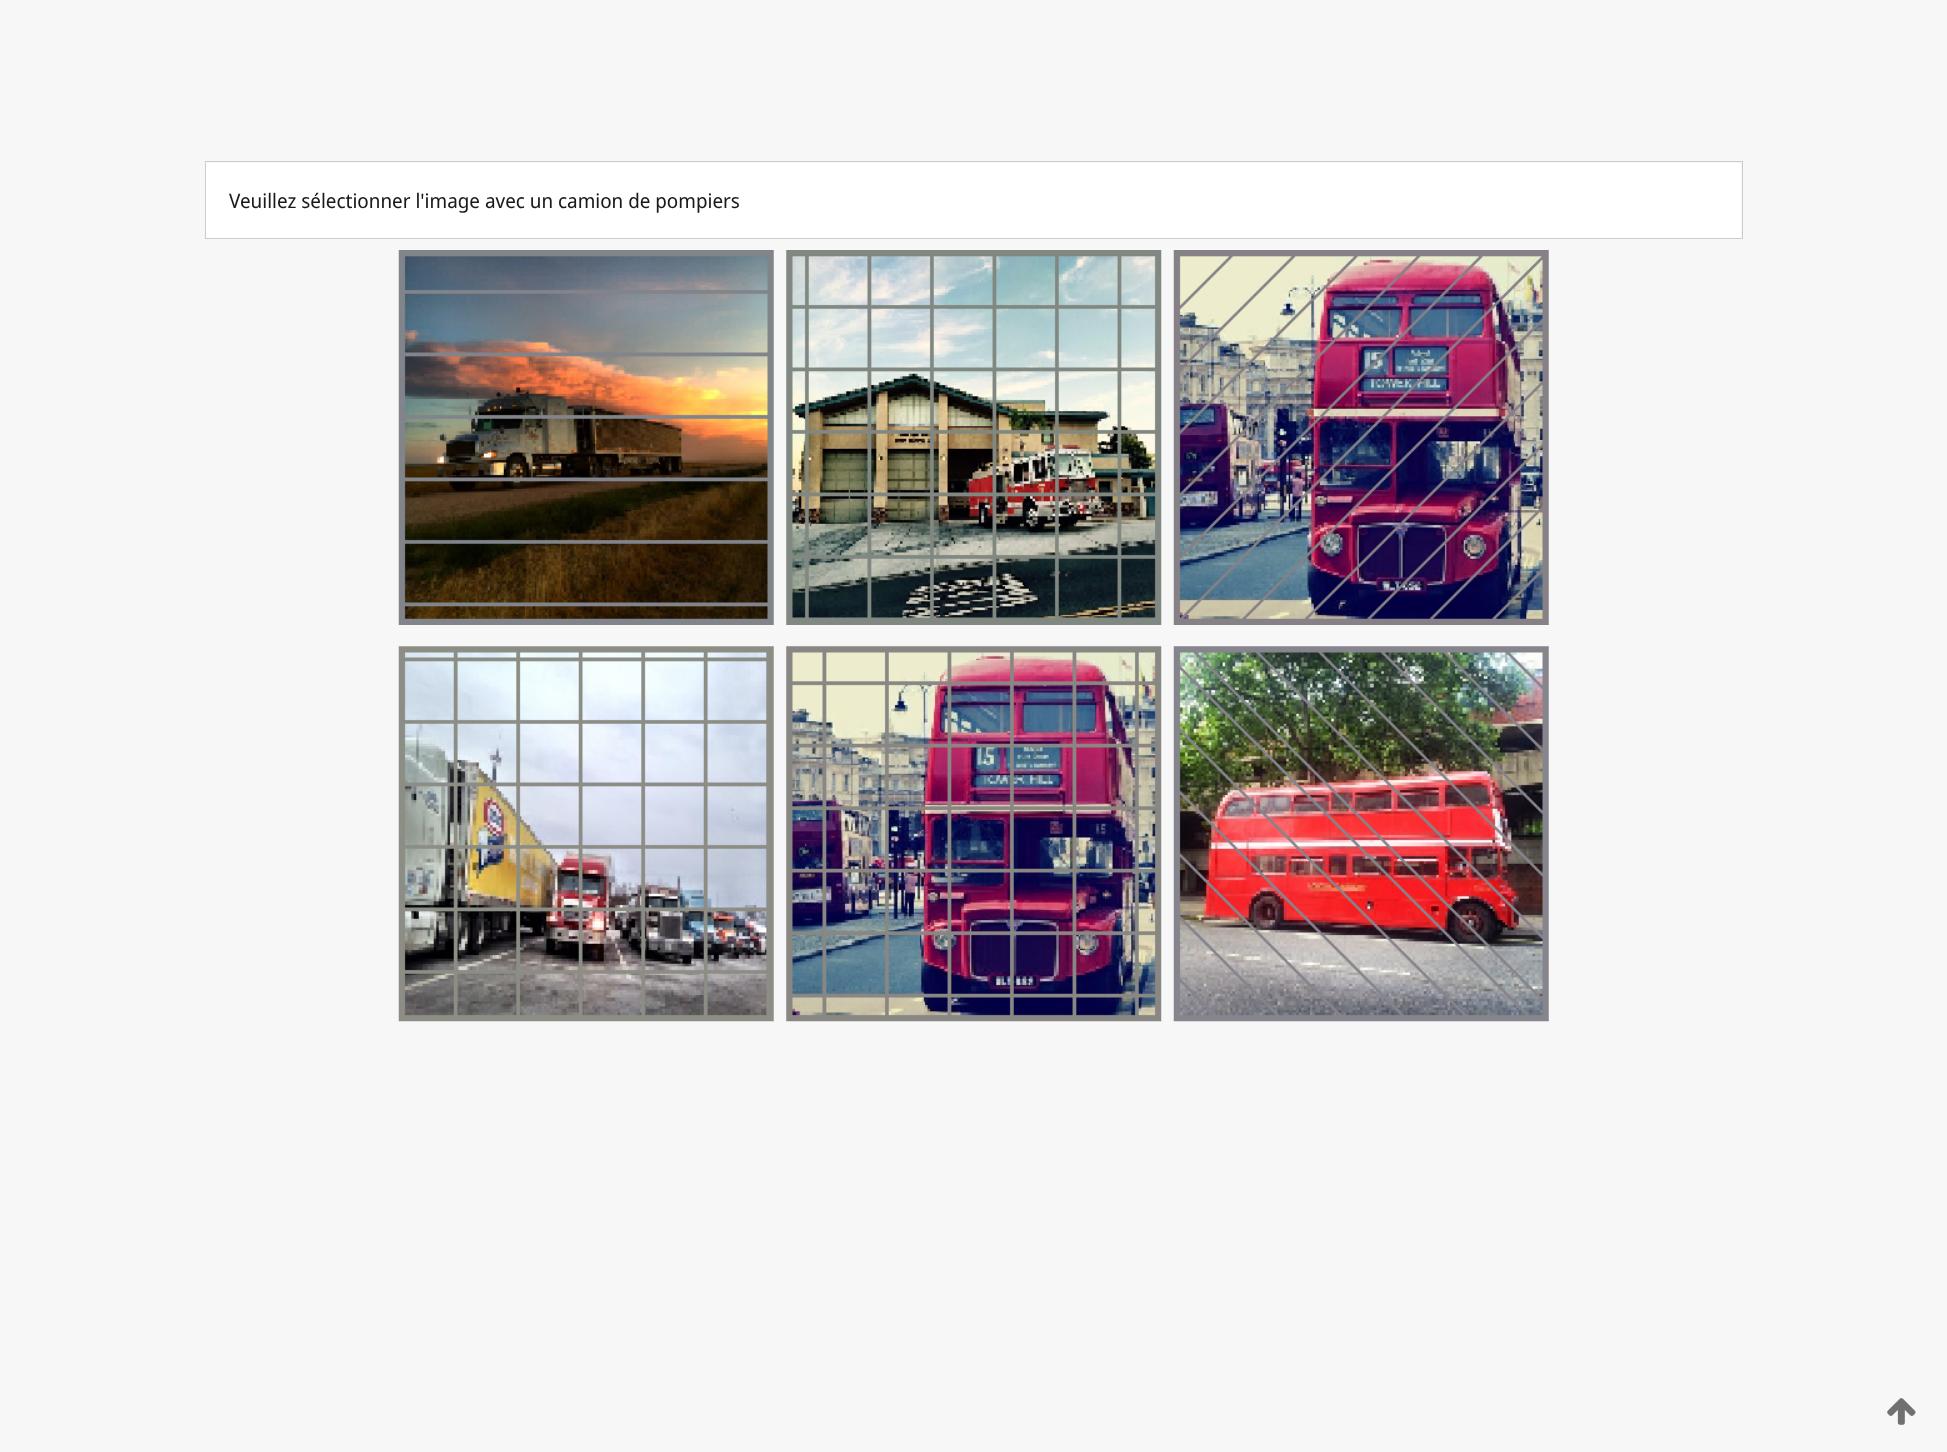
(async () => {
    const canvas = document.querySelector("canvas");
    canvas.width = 1947;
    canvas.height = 1452;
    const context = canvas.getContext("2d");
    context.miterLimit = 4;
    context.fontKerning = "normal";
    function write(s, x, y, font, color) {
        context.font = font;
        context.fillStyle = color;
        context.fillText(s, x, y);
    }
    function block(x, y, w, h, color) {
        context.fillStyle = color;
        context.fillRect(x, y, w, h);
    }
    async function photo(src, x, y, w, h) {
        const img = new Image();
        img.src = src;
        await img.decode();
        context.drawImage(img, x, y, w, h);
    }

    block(0, 0, 1947, 1452, "rgb(247, 247, 247)");
    block(206, 163, 1535, 75, "rgb(255, 255, 255)");
    context.strokeStyle = "rgb(204, 204, 204)";
    context.strokeRect(205.5, 161.5, 1537, 77);
    write("Veuillez sélectionner l'image avec un camion de pompiers", 229, 208, "20px Noto Sans Display", "rgb(26, 26, 26)");
    await photo("media/1.png", 398, 250, 376, 375);
    await photo("media/2.png", 786, 250, 376, 375);
    await photo("media/3.png", 1173, 250, 376, 375);
    await photo("media/4.png", 398, 646, 376, 376);
    await photo("media/5.png", 786, 646, 376, 376);
    await photo("media/6.png", 1173, 646, 376, 376);
    await photo("media/7.png", 1887, 1398, 29, 27);
})();
